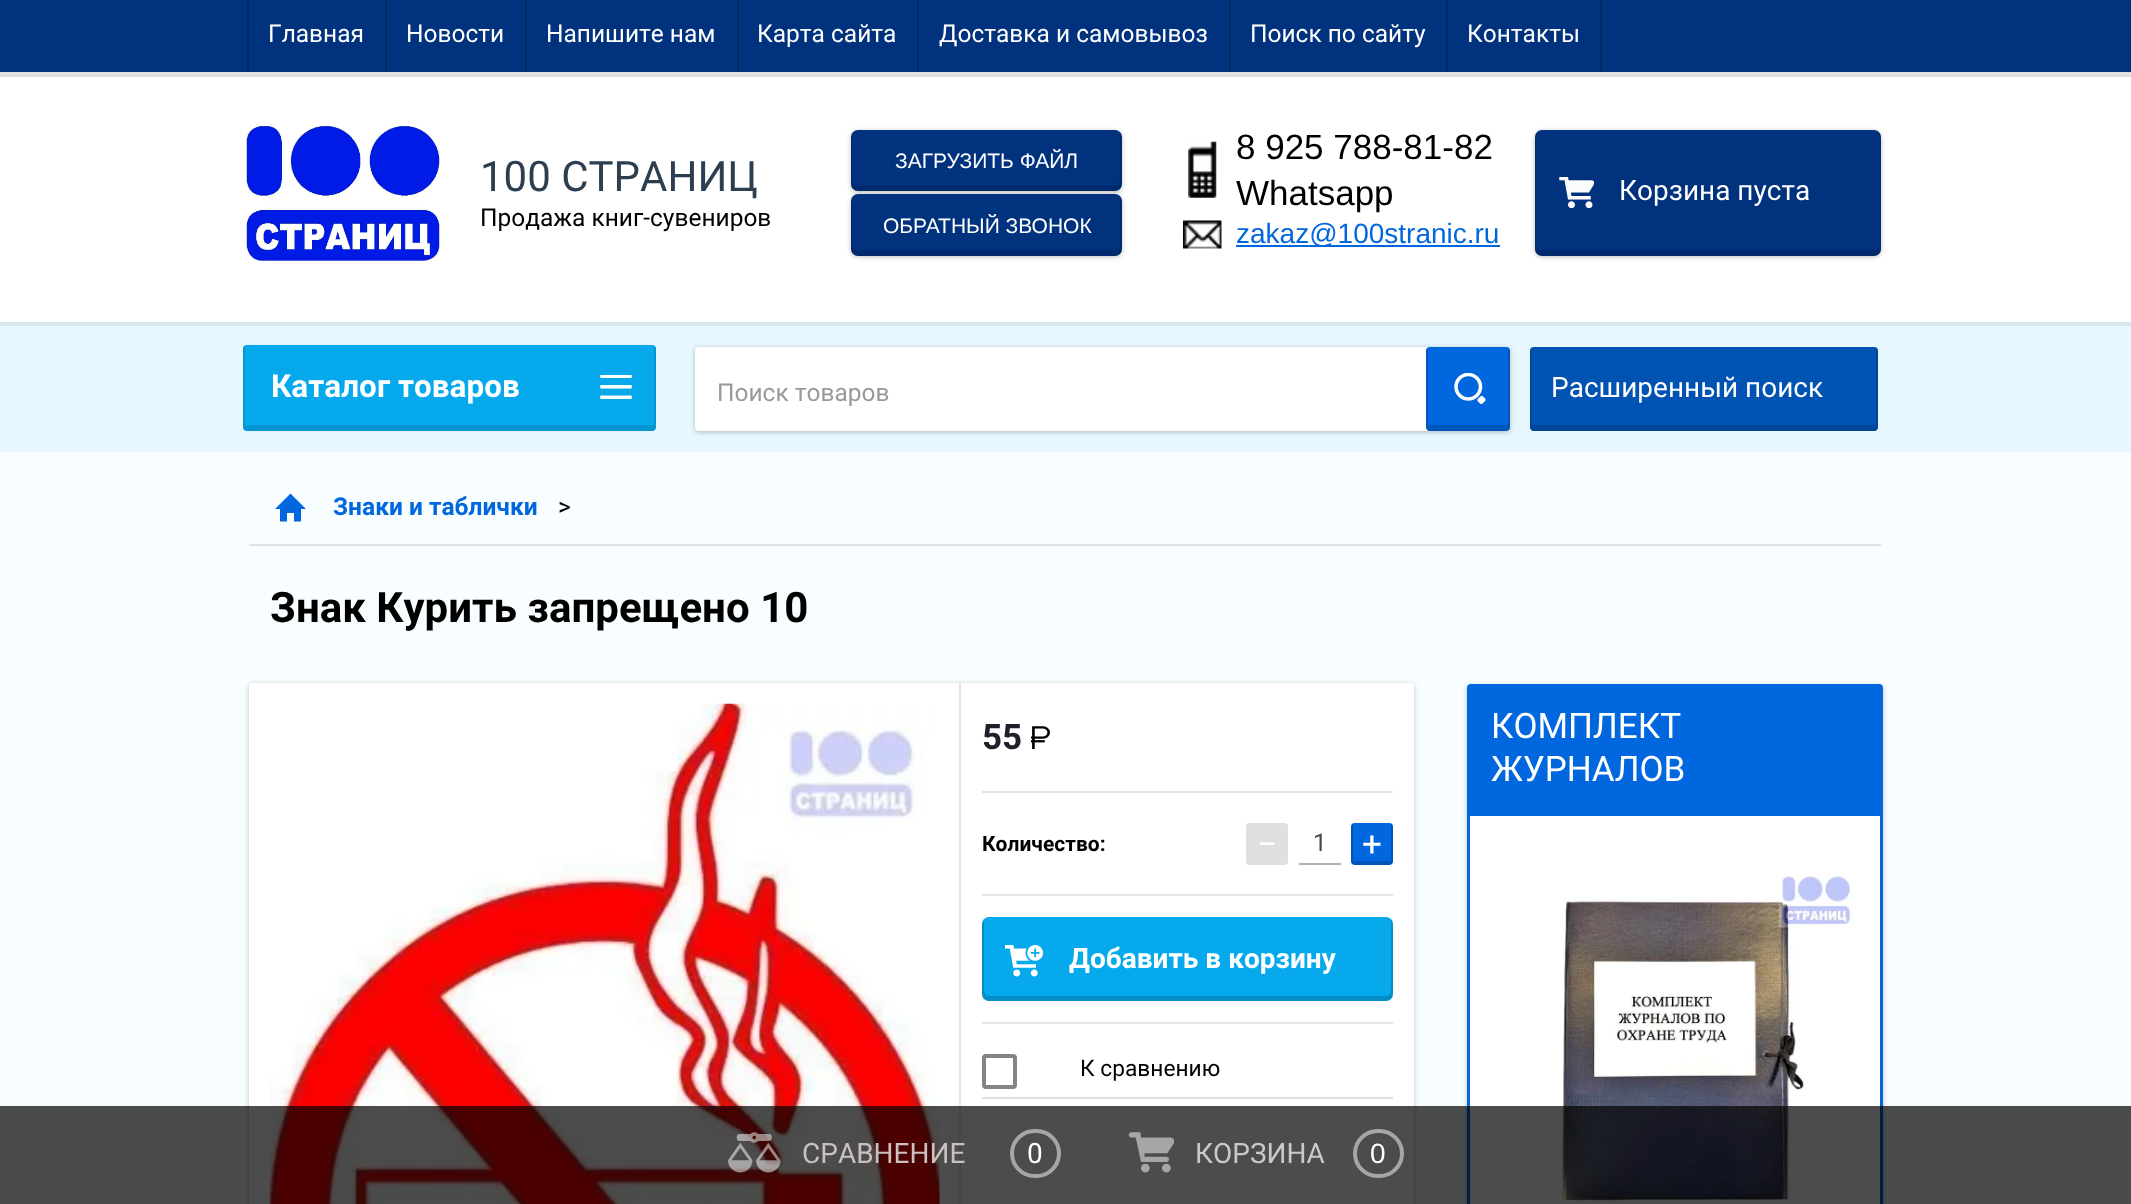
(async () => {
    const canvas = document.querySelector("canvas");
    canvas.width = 2131;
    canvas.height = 1204;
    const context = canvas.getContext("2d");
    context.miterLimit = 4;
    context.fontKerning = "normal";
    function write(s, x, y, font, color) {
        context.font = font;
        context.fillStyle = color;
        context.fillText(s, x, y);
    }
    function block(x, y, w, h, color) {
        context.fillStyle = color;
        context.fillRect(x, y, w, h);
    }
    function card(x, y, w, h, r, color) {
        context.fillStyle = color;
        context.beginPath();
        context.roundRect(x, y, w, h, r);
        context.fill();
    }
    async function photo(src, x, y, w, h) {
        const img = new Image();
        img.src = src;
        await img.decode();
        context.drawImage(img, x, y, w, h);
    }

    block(0, 0, 2131, 1204, "rgb(248, 253, 255)");
    block(0, 77, 2131, 245, "rgb(255, 255, 255)");
    context.fillStyle = "rgb(224, 224, 224)";
    context.beginPath();
    context.moveTo(0, 72);
    context.lineTo(0, 77);
    context.lineTo(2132, 77);
    context.lineTo(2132, 5);
    context.lineTo(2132, 72);
    context.closePath();
    context.fill();
    block(0, 0, 2131, 72, "rgb(0, 50, 125)");
    block(247, 0, 2, 72, "rgb(0, 40, 100)");
    write("Главная", 268, 42, "24.5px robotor", "rgb(255, 255, 255)");
    block(385, 0, 2, 72, "rgb(0, 40, 100)");
    write("Новости", 406, 42, "24.5px robotor", "rgb(255, 255, 255)");
    block(525, 0, 2, 72, "rgb(0, 40, 100)");
    write("Напишите нам", 546, 42, "24.5px robotor", "rgb(255, 255, 255)");
    block(737, 0, 2, 72, "rgb(0, 40, 100)");
    write("Карта сайта", 757, 42, "24.5px robotor", "rgb(255, 255, 255)");
    block(917, 0, 2, 72, "rgb(0, 40, 100)");
    write("Доставка и самовывоз", 939, 42, "24.5px robotor", "rgb(255, 255, 255)");
    block(1229, 0, 2, 72, "rgb(0, 40, 100)");
    write("Поиск по сайту", 1250, 42, "24.5px robotor", "rgb(255, 255, 255)");
    block(1446, 0, 2, 72, "rgb(0, 40, 100)");
    write("Контакты", 1467, 42, "24.5px robotor", "rgb(255, 255, 255)");
    block(1600, 0, 2, 72, "rgb(0, 40, 100)");
    await photo("media/1.png", 245, 124, 195, 139);
    write("100 СТРАНИЦ", 480, 191, "42px robotor", "rgb(44, 62, 80)");
    write("Продажа книг-сувениров", 480, 226, "24.5px robotor", "rgb(0, 0, 0)");
    context.fillStyle = "rgba(0, 0, 0, 0.24)";
    context.filter = "blur(2.5px)";
    context.beginPath();
    context.roundRect(851, 131, 271, 62, 7);
    context.fill();
    context.filter = "none";
    card(851, 130, 271, 61, 7, "rgb(0, 50, 125)");
    context.fillStyle = "rgba(0, 0, 0, 0.14)";
    context.beginPath();
    context.moveTo(852, 133);
    context.bezierCurveTo(851, 134, 851, 136, 851, 137);
    context.lineTo(851, 184);
    context.bezierCurveTo(851, 188, 854, 191, 858, 191);
    context.lineTo(1115, 191);
    context.bezierCurveTo(1119, 191, 1122, 188, 1122, 184);
    context.lineTo(1122, 137);
    context.bezierCurveTo(1122, 135, 1121, 133, 1120, 132);
    context.lineTo(1120, 180);
    context.bezierCurveTo(1120, 183, 1118, 186, 1115, 186);
    context.lineTo(858, 186);
    context.bezierCurveTo(855, 186, 852, 183, 852, 180);
    context.closePath();
    context.fill();
    write("ЗАГРУЗИТЬ ФАЙЛ", 895, 168, "21px Liberation Sans", "rgb(255, 255, 255)");
    context.fillStyle = "rgba(0, 0, 0, 0.24)";
    context.filter = "blur(2.5px)";
    context.beginPath();
    context.roundRect(851, 196, 271, 61, 7);
    context.fill();
    context.filter = "none";
    card(851, 194, 271, 62, 7, "rgb(0, 50, 125)");
    context.fillStyle = "rgba(0, 0, 0, 0.14)";
    context.beginPath();
    context.moveTo(852, 197);
    context.bezierCurveTo(851, 198, 851, 200, 851, 201);
    context.lineTo(851, 249);
    context.bezierCurveTo(851, 253, 854, 256, 858, 256);
    context.lineTo(1115, 256);
    context.bezierCurveTo(1119, 256, 1122, 253, 1122, 249);
    context.lineTo(1122, 201);
    context.bezierCurveTo(1122, 199, 1121, 197, 1120, 196);
    context.lineTo(1120, 198);
    context.lineTo(1120, 245);
    context.bezierCurveTo(1120, 248, 1118, 250, 1115, 250);
    context.lineTo(858, 250);
    context.bezierCurveTo(855, 250, 852, 248, 852, 245);
    context.closePath();
    context.fill();
    write("ОБРАТНЫЙ ЗВОНОК", 883, 233, "21px Liberation Sans", "rgb(255, 255, 255)");
    await photo("media/2.png", 1188, 141, 29, 57);
    write("8 925 788-81-82", 1236, 159, "35px Liberation Sans", "rgb(0, 0, 0)");
    write("Whatsapp", 1236, 205, "35px Liberation Sans", "rgb(0, 0, 0)");
    await photo("media/3.png", 1183, 220, 39, 29);
    block(1236, 245, 264, 2, "rgb(1, 103, 222)");
    write("zakaz@100stranic.ru", 1236, 243, "28px Liberation Sans", "rgb(1, 103, 222)");
    context.fillStyle = "rgba(0, 0, 0, 0.24)";
    context.filter = "blur(2.5px)";
    context.beginPath();
    context.roundRect(1535, 131, 346, 126, 7);
    context.fill();
    context.filter = "none";
    card(1535, 130, 346, 126, 7, "rgb(0, 50, 125)");
    context.fillStyle = "rgba(0, 0, 0, 0.14)";
    context.beginPath();
    context.moveTo(1536, 133);
    context.bezierCurveTo(1535, 134, 1535, 136, 1535, 137);
    context.lineTo(1535, 249);
    context.bezierCurveTo(1535, 253, 1538, 256, 1542, 256);
    context.lineTo(1874, 256);
    context.bezierCurveTo(1878, 256, 1881, 253, 1881, 249);
    context.lineTo(1881, 137);
    context.bezierCurveTo(1881, 136, 1881, 134, 1880, 133);
    context.lineTo(1880, 245);
    context.bezierCurveTo(1880, 248, 1877, 250, 1874, 250);
    context.lineTo(1542, 250);
    context.bezierCurveTo(1539, 250, 1536, 248, 1536, 245);
    context.closePath();
    context.fill();
    await photo("media/4.png", 1559, 177, 35, 31);
    write("Корзина пуста", 1619, 200, "28px robotor", "rgb(255, 255, 255)");
    context.beginPath();
    context.moveTo(0, 452);
    context.lineTo(0, 453);
    context.lineTo(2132, 453);
    context.lineTo(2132, 324);
    context.lineTo(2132, 452);
    context.closePath();
    context.fill();
    block(0, 326, 2131, 126, "rgb(231, 247, 254)");
    block(0, 322, 2131, 4, "rgb(217, 232, 239)");
    card(243, 345, 413, 86, 4, "rgb(6, 169, 235)");
    context.fillStyle = "rgba(0, 0, 0, 0.11)";
    context.beginPath();
    context.moveTo(245, 346);
    context.bezierCurveTo(244, 346, 243, 348, 243, 349);
    context.lineTo(243, 427);
    context.bezierCurveTo(243, 429, 245, 431, 247, 431);
    context.lineTo(652, 431);
    context.bezierCurveTo(654, 431, 656, 429, 656, 427);
    context.lineTo(656, 349);
    context.bezierCurveTo(656, 348, 655, 346, 654, 346);
    context.lineTo(654, 424);
    context.bezierCurveTo(654, 424, 654, 425, 653, 425);
    context.lineTo(247, 425);
    context.bezierCurveTo(246, 425, 245, 424, 245, 424);
    context.closePath();
    context.fill();
    write("Каталог товаров", 271, 397, "bold 31.5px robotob", "rgb(255, 255, 255)");
    await photo("media/5.png", 600, 375, 32, 24);
    context.fillStyle = "rgba(0, 0, 0, 0.24)";
    context.filter = "blur(2.5px)";
    context.beginPath();
    context.roundRect(1467, 686, 416, 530, 4);
    context.fill();
    context.filter = "none";
    card(1467, 684, 416, 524, 4, "rgb(1, 103, 222)");
    write("КОМПЛЕКТ", 1491, 738, "35px robotor", "rgb(255, 255, 255)");
    write("ЖУРНАЛОВ", 1491, 781, "35px robotor", "rgb(255, 255, 255)");
    block(1470, 816, 410, 388, "rgb(255, 255, 255)");
    await photo("media/6.png", 1560, 875, 293, 326);
    context.fillStyle = "rgba(0, 0, 0, 0.24)";
    context.filter = "blur(2.5px)";
    context.beginPath();
    context.roundRect(695, 348, 815, 84, 4);
    context.fill();
    context.filter = "none";
    card(695, 347, 815, 84, 4, "rgb(255, 255, 255)");
    write("Поиск товаров", 717, 401, "24.5px robotor", "rgb(153, 153, 153)");
    card(1426, 347, 84, 84, 4, "rgb(1, 103, 222)");
    context.fillStyle = "rgba(0, 0, 0, 0.16)";
    context.beginPath();
    context.moveTo(1428, 348);
    context.bezierCurveTo(1427, 348, 1426, 350, 1426, 351);
    context.lineTo(1426, 427);
    context.bezierCurveTo(1426, 429, 1428, 431, 1430, 431);
    context.lineTo(1506, 431);
    context.bezierCurveTo(1508, 431, 1510, 429, 1510, 427);
    context.lineTo(1510, 351);
    context.bezierCurveTo(1510, 350, 1509, 348, 1508, 348);
    context.lineTo(1508, 424);
    context.bezierCurveTo(1508, 424, 1508, 425, 1507, 425);
    context.lineTo(1430, 425);
    context.bezierCurveTo(1429, 425, 1428, 424, 1428, 424);
    context.closePath();
    context.fill();
    await photo("media/7.png", 1454, 373, 32, 31);
    card(1530, 347, 348, 84, 4, "rgb(0, 83, 179)");
    context.fillStyle = "rgba(0, 0, 0, 0.16)";
    context.beginPath();
    context.moveTo(1531, 348);
    context.bezierCurveTo(1530, 349, 1530, 350, 1530, 351);
    context.lineTo(1530, 427);
    context.bezierCurveTo(1530, 429, 1532, 431, 1534, 431);
    context.lineTo(1874, 431);
    context.bezierCurveTo(1876, 431, 1878, 429, 1878, 427);
    context.lineTo(1878, 351);
    context.bezierCurveTo(1878, 350, 1877, 348, 1876, 348);
    context.lineTo(1876, 424);
    context.bezierCurveTo(1876, 424, 1875, 425, 1874, 425);
    context.lineTo(1533, 425);
    context.bezierCurveTo(1532, 425, 1531, 424, 1531, 424);
    context.closePath();
    context.fill();
    write("Расширенный поиск", 1551, 397, "28px robotor", "rgb(255, 255, 255)");
    block(249, 544, 1632, 2, "rgb(225, 226, 227)");
    context.fillStyle = "rgb(1, 103, 222)";
    context.beginPath();
    context.moveTo(301, 509);
    context.lineTo(301, 521.5);
    context.lineTo(294, 521.5);
    context.lineTo(294, 513);
    context.lineTo(287, 513);
    context.lineTo(287, 521.5);
    context.lineTo(280, 521.5);
    context.lineTo(280, 509);
    context.lineTo(275, 509);
    context.lineTo(290.5, 493.5);
    context.lineTo(306, 509);
    context.closePath();
    context.fill("evenodd");
    write("Знаки и таблички", 333, 515, "bold 24.5px robotob", "rgb(1, 103, 222)");
    write(">", 558, 515, "24.5px robotor", "rgb(0, 0, 0)");
    write("Знак Курить запрещено 10", 270, 622, "bold 42px robotob", "rgb(0, 0, 0)");
    context.fillStyle = "rgba(0, 0, 0, 0.24)";
    context.filter = "blur(2.5px)";
    context.beginPath();
    context.roundRect(249, 684, 1165, 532, 4);
    context.fill();
    context.filter = "none";
    card(249, 683, 1165, 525, 4, "rgb(255, 255, 255)");
    await photo("media/8.png", 269, 703, 671, 501);
    block(959, 683, 2, 521, "rgb(230, 230, 230)");
    write("55", 982, 749, "bold 35px robotob", "rgb(32, 32, 42)");
    await photo("media/9.png", 1031, 726, 19, 23);
    block(982, 791, 411, 2, "rgb(229, 229, 229)");
    block(982, 894, 411, 2, "rgb(229, 229, 229)");
    write("Количество:", 982, 851, "bold 21px robotob", "rgb(0, 0, 0)");
    card(1246, 823, 42, 42, 4, "rgb(223, 223, 223)");
    write("−", 1257, 856, "35px robotor", "rgb(255, 255, 255)");
    block(1299, 863, 42, 2, "rgb(178, 178, 178)");
    write("1", 1313, 851, "24.5px robotor", "rgb(72, 72, 72)");
    card(1351, 823, 42, 42, 4, "rgb(1, 103, 222)");
    context.fillStyle = "rgba(0, 0, 0, 0.16)";
    context.beginPath();
    context.moveTo(1353, 823);
    context.bezierCurveTo(1352, 824, 1351, 825, 1351, 827);
    context.lineTo(1351, 861);
    context.bezierCurveTo(1351, 863, 1353, 865, 1355, 865);
    context.lineTo(1389, 865);
    context.bezierCurveTo(1391, 865, 1393, 863, 1393, 861);
    context.lineTo(1393, 827);
    context.bezierCurveTo(1393, 825, 1392, 824, 1391, 823);
    context.lineTo(1391, 859);
    context.lineTo(1390, 861);
    context.lineTo(1354, 861);
    context.lineTo(1353, 859);
    context.closePath();
    context.fill();
    write("+", 1362, 856, "35px robotor", "rgb(255, 255, 255)");
    card(982, 917, 411, 84, 7, "rgb(6, 169, 235)");
    context.fillStyle = "rgba(0, 0, 0, 0.16)";
    context.beginPath();
    context.moveTo(984, 919);
    context.bezierCurveTo(983, 920, 982, 922, 982, 924);
    context.lineTo(982, 994);
    context.bezierCurveTo(982, 998, 985, 1001, 989, 1001);
    context.lineTo(1386, 1001);
    context.bezierCurveTo(1390, 1001, 1393, 998, 1393, 994);
    context.lineTo(1393, 924);
    context.bezierCurveTo(1393, 922, 1392, 920, 1391, 919);
    context.lineTo(1391, 990);
    context.bezierCurveTo(1391, 993, 1389, 996, 1386, 996);
    context.lineTo(989, 996);
    context.bezierCurveTo(986, 996, 984, 993, 984, 990);
    context.closePath();
    context.fill();
    await photo("media/10.png", 1005, 945, 38, 32);
    write("Добавить в корзину", 1069, 968, "bold 28px robotob", "rgb(255, 255, 255)");
    block(982, 1022, 411, 2, "rgb(229, 229, 229)");
    block(982, 1097, 411, 2, "rgb(222, 222, 222)");
    context.beginPath();
    context.roundRect(984, 1056, 31, 31, 2);
    context.strokeStyle = "rgb(132, 132, 132)";
    context.lineWidth = 4;
    context.stroke();
    write("К сравнению", 1080, 1076, "22.75px robotor", "rgb(0, 0, 0)");
    block(0, 1106, 2131, 98, "rgba(0, 0, 0, 0.7)");
    await photo("media/11.png", 728, 1132, 53, 41);
    write("СРАВНЕНИЕ", 802, 1163, "28px robotor", "rgb(201, 193, 193)");
    context.beginPath();
    context.roundRect(1012, 1131, 47, 45, 22.5);
    context.strokeStyle = "rgb(166, 166, 166)";
    context.stroke();
    write("0", 1027, 1163, "28px robotor", "rgb(255, 255, 255)");
    await photo("media/12.png", 1129, 1132, 45, 41);
    write("КОРЗИНА", 1195, 1163, "28px robotor", "rgb(201, 201, 201)");
    context.beginPath();
    context.roundRect(1355, 1131, 47, 45, 22.5);
    context.stroke();
    write("0", 1370, 1163, "28px Liberation Sans", "rgb(255, 255, 255)");
})();
